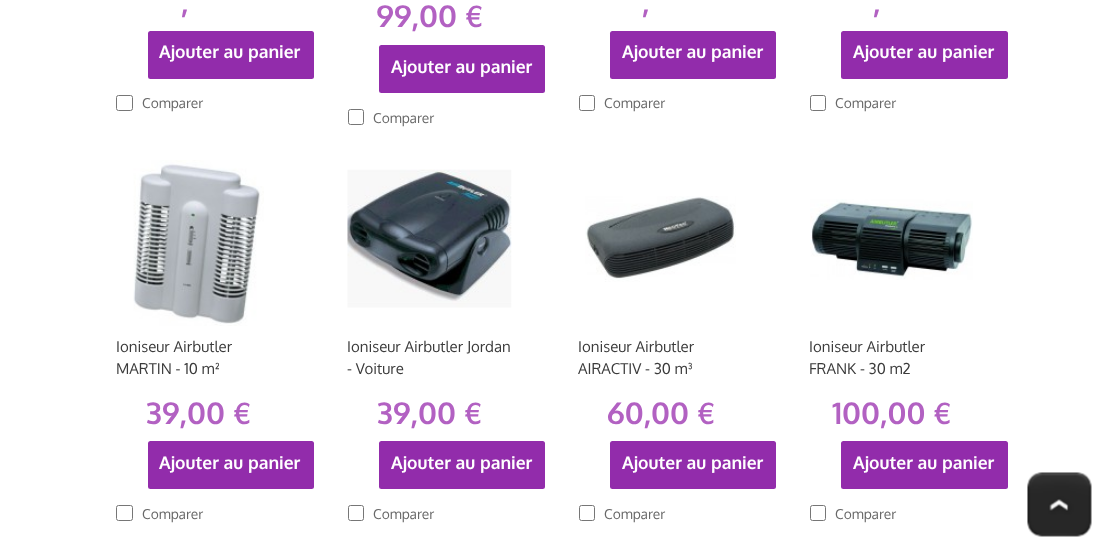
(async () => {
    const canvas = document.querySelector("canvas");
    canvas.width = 1103;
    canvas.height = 548;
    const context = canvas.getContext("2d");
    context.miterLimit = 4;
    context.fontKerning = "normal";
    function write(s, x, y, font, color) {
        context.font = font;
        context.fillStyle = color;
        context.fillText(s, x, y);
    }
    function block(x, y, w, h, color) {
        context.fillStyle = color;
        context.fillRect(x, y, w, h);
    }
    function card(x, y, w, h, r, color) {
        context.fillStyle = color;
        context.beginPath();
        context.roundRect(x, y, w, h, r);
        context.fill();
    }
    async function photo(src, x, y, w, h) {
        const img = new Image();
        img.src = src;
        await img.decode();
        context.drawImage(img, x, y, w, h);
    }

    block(0, 0, 1103, 548, "rgb(255, 255, 255)");
    write(",", 181, 13, "bold 30px Oxygen", "rgb(178, 97, 194)");
    card(148, 31, 166, 48, 2.5, "rgb(146, 44, 171)");
    write("Ajouter au panier", 159, 58, "bold 17.5px Oxygen", "rgb(255, 255, 255)");
    context.beginPath();
    context.roundRect(116.5, 95.5, 16, 15, 2);
    context.strokeStyle = "rgb(118, 118, 118)";
    context.stroke();
    write("Comparer", 142, 108, "13.75px Oxygen", "rgb(104, 104, 104)");
    write("99,00 €", 376, 27, "bold 30px Oxygen", "rgb(178, 97, 194)");
    card(379, 45, 166, 48, 2.5, "rgb(146, 44, 171)");
    write("Ajouter au panier", 391, 73, "bold 17.5px Oxygen", "rgb(255, 255, 255)");
    context.beginPath();
    context.roundRect(348.5, 109.5, 15, 15, 2);
    context.stroke();
    write("Comparer", 373, 123, "13.75px Oxygen", "rgb(104, 104, 104)");
    write(",", 642, 13, "bold 30px Oxygen", "rgb(178, 97, 194)");
    card(610, 31, 166, 48, 2.5, "rgb(146, 44, 171)");
    write("Ajouter au panier", 622, 58, "bold 17.5px Oxygen", "rgb(255, 255, 255)");
    context.beginPath();
    context.roundRect(579.5, 95.5, 15, 15, 2);
    context.stroke();
    write("Comparer", 604, 108, "13.75px Oxygen", "rgb(104, 104, 104)");
    write(",", 873, 13, "bold 30px Oxygen", "rgb(178, 97, 194)");
    card(841, 31, 167, 48, 2.5, "rgb(146, 44, 171)");
    write("Ajouter au panier", 853, 58, "bold 17.5px Oxygen", "rgb(255, 255, 255)");
    context.beginPath();
    context.roundRect(810.5, 95.5, 15, 15, 2);
    context.stroke();
    write("Comparer", 835, 108, "13.75px Oxygen", "rgb(104, 104, 104)");
    await photo("media/1.png", 133, 160, 131, 166);
    write("Ioniseur Airbutler", 116, 352, "15px Oxygen", "rgb(59, 59, 59)");
    write("MARTIN - 10 m²", 116, 374, "15px Oxygen", "rgb(59, 59, 59)");
    write("39,00 €", 146, 424, "bold 30px Oxygen", "rgb(178, 97, 194)");
    card(148, 441, 166, 48, 2.5, "rgb(146, 44, 171)");
    write("Ajouter au panier", 159, 469, "bold 17.5px Oxygen", "rgb(255, 255, 255)");
    context.beginPath();
    context.roundRect(116.5, 505.5, 16, 15, 2);
    context.stroke();
    write("Comparer", 142, 519, "13.75px Oxygen", "rgb(104, 104, 104)");
    await photo("media/2.png", 347, 169, 165, 139);
    write("Ioniseur Airbutler Jordan", 347, 352, "15px Oxygen", "rgb(59, 59, 59)");
    write("- Voiture", 347, 374, "15px Oxygen", "rgb(59, 59, 59)");
    write("39,00 €", 377, 424, "bold 30px Oxygen", "rgb(178, 97, 194)");
    card(379, 441, 166, 48, 2.5, "rgb(146, 44, 171)");
    write("Ajouter au panier", 391, 469, "bold 17.5px Oxygen", "rgb(255, 255, 255)");
    context.beginPath();
    context.roundRect(348.5, 505.5, 15, 15, 2);
    context.stroke();
    write("Comparer", 373, 519, "13.75px Oxygen", "rgb(104, 104, 104)");
    await photo("media/3.png", 585, 196, 151, 86);
    write("Ioniseur Airbutler", 578, 352, "15px Oxygen", "rgb(59, 59, 59)");
    write("AIRACTIV - 30 m³", 578, 374, "15px Oxygen", "rgb(59, 59, 59)");
    write("60,00 €", 607, 424, "bold 30px Oxygen", "rgb(178, 97, 194)");
    card(610, 441, 166, 48, 2.5, "rgb(146, 44, 171)");
    write("Ajouter au panier", 622, 469, "bold 17.5px Oxygen", "rgb(255, 255, 255)");
    context.beginPath();
    context.roundRect(579.5, 505.5, 15, 15, 2);
    context.stroke();
    write("Comparer", 604, 519, "13.75px Oxygen", "rgb(104, 104, 104)");
    await photo("media/4.png", 810, 199, 163, 81);
    write("Ioniseur Airbutler", 809, 352, "15px Oxygen", "rgb(59, 59, 59)");
    write("FRANK - 30 m2", 809, 374, "15px Oxygen", "rgb(59, 59, 59)");
    write("100,00 €", 832, 424, "bold 30px Oxygen", "rgb(178, 97, 194)");
    card(841, 441, 167, 48, 2.5, "rgb(146, 44, 171)");
    write("Ajouter au panier", 853, 469, "bold 17.5px Oxygen", "rgb(255, 255, 255)");
    context.beginPath();
    context.roundRect(810.5, 505.5, 15, 15, 2);
    context.stroke();
    write("Comparer", 835, 519, "13.75px Oxygen", "rgb(104, 104, 104)");
    await photo("media/5.png", 1027, 472, 65, 65);
})();
